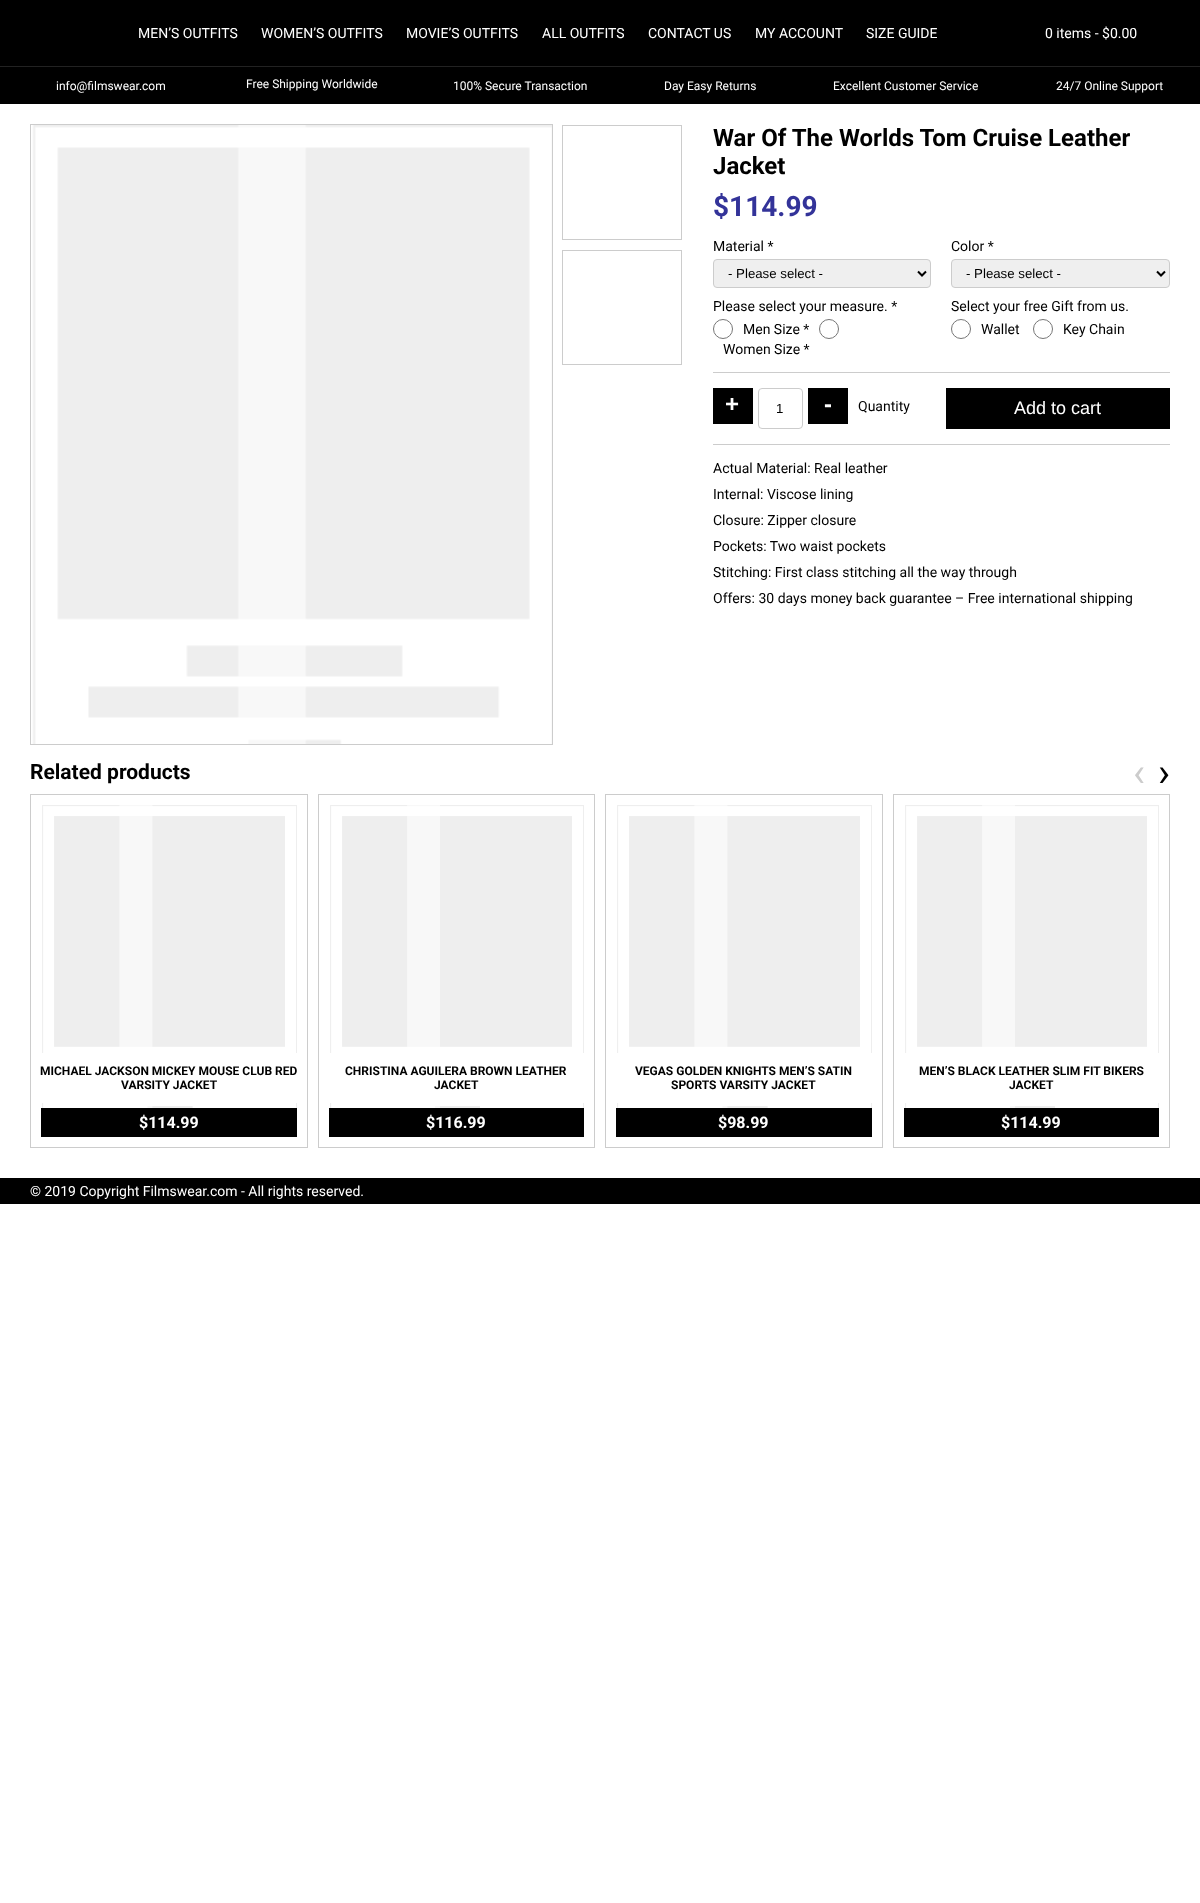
(async () => {
    const canvas = document.querySelector("canvas");
    canvas.width = 1200;
    canvas.height = 1903;
    const context = canvas.getContext("2d");
    context.miterLimit = 4;
    context.fontKerning = "normal";
    function write(s, x, y, font, color) {
        context.font = font;
        context.fillStyle = color;
        context.fillText(s, x, y);
    }
    function block(x, y, w, h, color) {
        context.fillStyle = color;
        context.fillRect(x, y, w, h);
    }
    async function photo(src, x, y, w, h) {
        const img = new Image();
        img.src = src;
        await img.decode();
        context.drawImage(img, x, y, w, h);
    }

    block(0, 0, 1200, 1903, "rgb(255, 255, 255)");
    block(0, 0, 1200, 104, "rgb(0, 0, 0)");
    write("MEN’S OUTFITS", 138, 38, "14px Roboto", "rgb(255, 255, 255)");
    write("WOMEN’S OUTFITS", 261, 38, "14px Roboto", "rgb(255, 255, 255)");
    write("MOVIE’S OUTFITS", 406, 38, "14px Roboto", "rgb(255, 255, 255)");
    write("ALL OUTFITS", 542, 38, "14px Roboto", "rgb(255, 255, 255)");
    write("CONTACT US", 648, 38, "14px Roboto", "rgb(255, 255, 255)");
    write("MY ACCOUNT", 755, 38, "14px Roboto", "rgb(255, 255, 255)");
    write("SIZE GUIDE", 866, 38, "14px Roboto", "rgb(255, 255, 255)");
    write("0 items - $0.00", 1045, 38, "14px Roboto", "rgb(255, 255, 255)");
    block(0, 66, 1200, 1, "rgb(34, 34, 34)");
    write("info@filmswear.com", 56, 90, "12px Roboto", "rgb(255, 255, 255)");
    write("Free Shipping Worldwide", 246, 88, "12px Roboto", "rgb(255, 255, 255)");
    write("100% Secure Transaction", 453, 90, "12px Roboto", "rgb(255, 255, 255)");
    write("Day Easy Returns", 664, 90, "12px Roboto", "rgb(255, 255, 255)");
    write("Excellent Customer Service", 833, 90, "12px Roboto", "rgb(255, 255, 255)");
    write("24/7 Online Support", 1056, 90, "12px Roboto", "rgb(255, 255, 255)");
    context.strokeStyle = "rgb(204, 204, 204)";
    context.strokeRect(30.5, 124.5, 522, 620);
    await photo("media/1.png", 31, 125, 521, 619);
    context.strokeRect(562.5, 125.5, 119, 114);
    context.strokeRect(562.5, 250.5, 119, 114);
    write("War Of The Worlds Tom Cruise Leather", 713, 146, "bold 24px Roboto", "rgb(0, 0, 0)");
    write("Jacket", 713, 174, "bold 24px Roboto", "rgb(0, 0, 0)");
    write("$114.99", 713, 216, "bold 28px Roboto", "rgb(51, 51, 153)");
    write("Material *", 713, 251, "14px Roboto", "rgb(0, 0, 0)");
    context.fillStyle = "rgb(239, 239, 239)";
    context.beginPath();
    context.roundRect(713.5, 259.5, 217, 28, 3.5);
    context.fill();
    context.stroke();
    context.beginPath();
    context.moveTo(918, 271.5);
    context.lineTo(922, 275.5);
    context.lineTo(926, 271.5);
    context.strokeStyle = "rgb(0, 0, 0)";
    context.lineWidth = 2;
    context.stroke();
    write("- Please select -", 728, 278, "13.25px Liberation Sans", "rgb(0, 0, 0)");
    write("Color *", 951, 251, "14px Roboto", "rgb(0, 0, 0)");
    context.fillStyle = "rgb(239, 239, 239)";
    context.beginPath();
    context.roundRect(951.5, 259.5, 218, 28, 3.5);
    context.fill();
    context.strokeStyle = "rgb(204, 204, 204)";
    context.lineWidth = 1;
    context.stroke();
    context.beginPath();
    context.moveTo(1157, 271.5);
    context.lineTo(1161, 275.5);
    context.lineTo(1165, 271.5);
    context.strokeStyle = "rgb(0, 0, 0)";
    context.lineWidth = 2;
    context.stroke();
    write("- Please select -", 966, 278, "13.25px Liberation Sans", "rgb(0, 0, 0)");
    write("Please select your measure. *", 713, 311, "14px Roboto", "rgb(0, 0, 0)");
    context.beginPath();
    context.arc(723, 329, 9.5, 0, Math.PI * 2);
    context.strokeStyle = "rgb(118, 118, 118)";
    context.lineWidth = 1;
    context.stroke();
    write("Men Size *", 743, 334, "14px Roboto", "rgb(0, 0, 0)");
    context.beginPath();
    context.arc(829, 329, 9.5, 0, Math.PI * 2);
    context.stroke();
    write("Women Size *", 723, 354, "14px Roboto", "rgb(0, 0, 0)");
    write("Select your free Gift from us.", 951, 311, "14px Roboto", "rgb(0, 0, 0)");
    context.beginPath();
    context.arc(961, 329, 9.5, 0, Math.PI * 2);
    context.stroke();
    write("Wallet", 981, 334, "14px Roboto", "rgb(0, 0, 0)");
    context.beginPath();
    context.arc(1043, 329, 9.5, 0, Math.PI * 2);
    context.stroke();
    write("Key Chain", 1063, 334, "14px Roboto", "rgb(0, 0, 0)");
    block(713, 372, 457, 1, "rgb(204, 204, 204)");
    block(713, 388, 40, 36, "rgb(0, 0, 0)");
    write("+", 725, 412, "bold 24px Liberation Sans", "rgb(255, 255, 255)");
    context.beginPath();
    context.roundRect(758.5, 388.5, 44, 40, 3.5);
    context.strokeStyle = "rgb(204, 204, 204)";
    context.stroke();
    write("1", 776, 413, "13.25px Liberation Sans", "rgb(0, 0, 0)");
    block(808, 388, 40, 36, "rgb(0, 0, 0)");
    write("-", 824, 412, "bold 24px Liberation Sans", "rgb(255, 255, 255)");
    write("Quantity", 858, 411, "14px Roboto", "rgb(0, 0, 0)");
    block(946, 388, 224, 41, "rgb(0, 0, 0)");
    write("Add to cart", 1014, 414, "18px Liberation Sans", "rgb(255, 255, 255)");
    block(713, 444, 457, 1, "rgb(204, 204, 204)");
    write("Actual Material: Real leather", 713, 473, "14px Roboto", "rgb(0, 0, 0)");
    write("Internal: Viscose lining", 713, 499, "14px Roboto", "rgb(0, 0, 0)");
    write("Closure: Zipper closure", 713, 525, "14px Roboto", "rgb(0, 0, 0)");
    write("Pockets: Two waist pockets", 713, 551, "14px Roboto", "rgb(0, 0, 0)");
    write("Stitching: First class stitching all the way through", 713, 577, "14px Roboto", "rgb(0, 0, 0)");
    write("Offers: 30 days money back guarantee – Free international shipping", 713, 603, "14px Roboto", "rgb(0, 0, 0)");
    write("Related products", 30, 779, "bold 21px Roboto", "rgb(0, 0, 0)");
    write("‹", 1133, 786, "40px Roboto", "rgb(204, 204, 204)");
    write("›", 1158, 786, "40px Roboto", "rgb(0, 0, 0)");
    context.strokeRect(30.5, 794.5, 277, 353);
    await photo("media/2.png", 42, 805, 255, 303);
    block(42, 1053, 255, 50, "rgb(255, 255, 255)");
    write("MICHAEL JACKSON MICKEY MOUSE CLUB RED", 40, 1075, "bold 12px Roboto", "rgb(0, 0, 0)");
    write("VARSITY JACKET", 121, 1089, "bold 12px Roboto", "rgb(0, 0, 0)");
    block(41, 1108, 256, 29, "rgb(0, 0, 0)");
    write("$114.99", 139, 1128, "bold 16px Roboto", "rgb(255, 255, 255)");
    context.strokeRect(318.5, 794.5, 276, 353);
    await photo("media/3.png", 330, 805, 254, 303);
    block(330, 1053, 254, 50, "rgb(255, 255, 255)");
    write("CHRISTINA AGUILERA BROWN LEATHER", 345, 1075, "bold 12px Roboto", "rgb(0, 0, 0)");
    write("JACKET", 434, 1089, "bold 12px Roboto", "rgb(0, 0, 0)");
    block(329, 1108, 255, 29, "rgb(0, 0, 0)");
    write("$116.99", 426, 1128, "bold 16px Roboto", "rgb(255, 255, 255)");
    context.strokeRect(605.5, 794.5, 277, 353);
    await photo("media/2.png", 617, 805, 255, 303);
    block(617, 1053, 255, 50, "rgb(255, 255, 255)");
    write("VEGAS GOLDEN KNIGHTS MEN’S SATIN", 635, 1075, "bold 12px Roboto", "rgb(0, 0, 0)");
    write("SPORTS VARSITY JACKET", 671, 1089, "bold 12px Roboto", "rgb(0, 0, 0)");
    block(616, 1108, 256, 29, "rgb(0, 0, 0)");
    write("$98.99", 718, 1128, "bold 16px Roboto", "rgb(255, 255, 255)");
    context.strokeRect(893.5, 794.5, 276, 353);
    await photo("media/3.png", 905, 805, 254, 303);
    block(905, 1053, 254, 50, "rgb(255, 255, 255)");
    write("MEN’S BLACK LEATHER SLIM FIT BIKERS", 919, 1075, "bold 12px Roboto", "rgb(0, 0, 0)");
    write("JACKET", 1009, 1089, "bold 12px Roboto", "rgb(0, 0, 0)");
    block(904, 1108, 255, 29, "rgb(0, 0, 0)");
    write("$114.99", 1001, 1128, "bold 16px Roboto", "rgb(255, 255, 255)");
    block(0, 1178, 1200, 26, "rgb(0, 0, 0)");
    write("© 2019 Copyright Filmswear.com - All rights reserved.", 30, 1196, "14px Roboto", "rgb(255, 255, 255)");
})();
